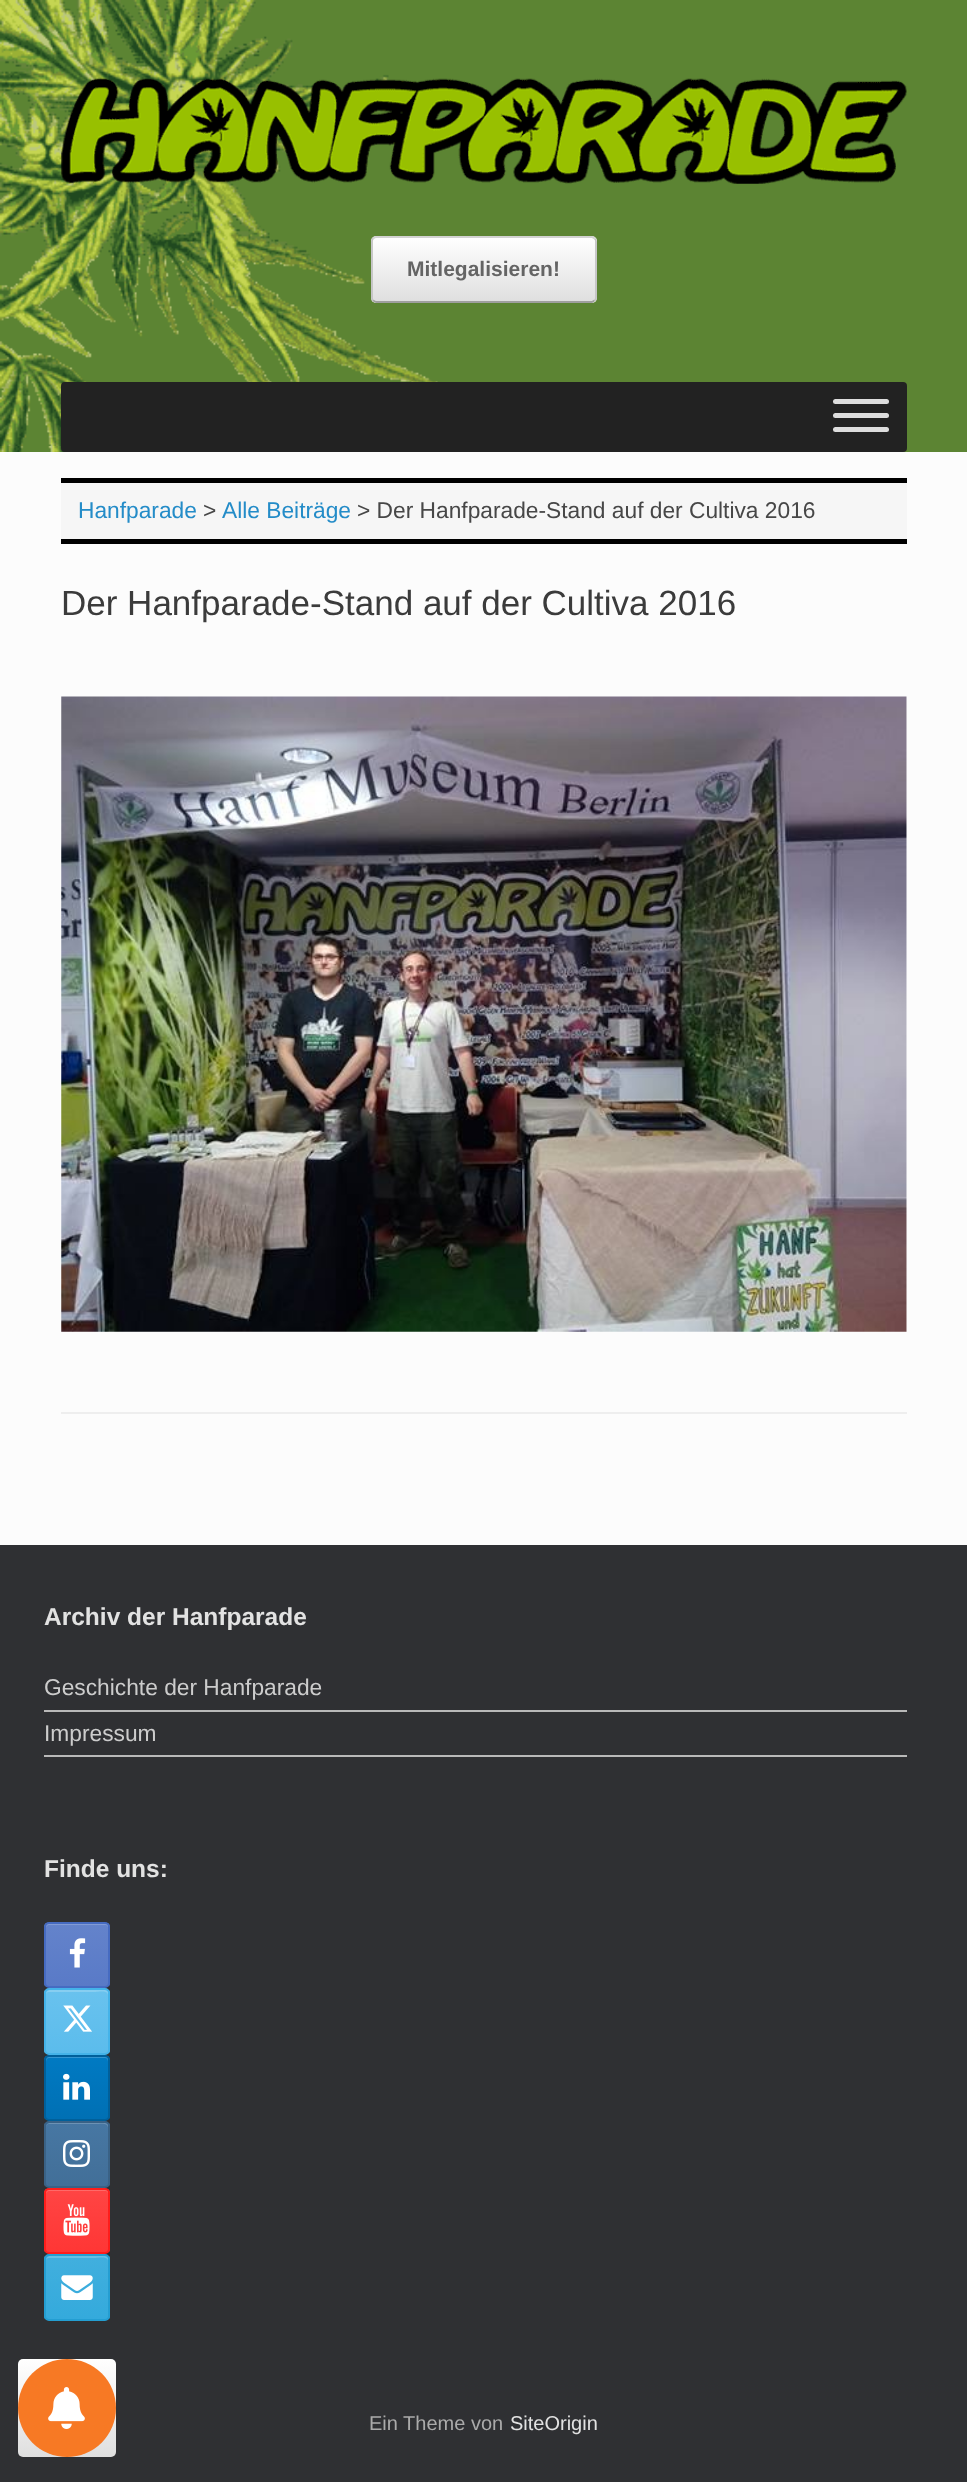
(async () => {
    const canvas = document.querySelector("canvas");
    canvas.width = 967;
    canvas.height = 2482;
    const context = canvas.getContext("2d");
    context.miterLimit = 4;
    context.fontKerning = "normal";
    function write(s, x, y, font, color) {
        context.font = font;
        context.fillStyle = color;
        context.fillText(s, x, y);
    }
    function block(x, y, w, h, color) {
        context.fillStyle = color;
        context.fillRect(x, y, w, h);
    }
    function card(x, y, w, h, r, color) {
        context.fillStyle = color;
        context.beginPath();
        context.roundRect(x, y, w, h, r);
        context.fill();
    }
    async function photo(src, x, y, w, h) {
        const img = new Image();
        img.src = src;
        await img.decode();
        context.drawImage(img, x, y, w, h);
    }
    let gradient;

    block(0, 0, 967, 2482, "rgb(92, 132, 51)");
    await photo("media/1.png", 0, 0, 438, 452);
    await photo("media/2.png", 61, 78, 846, 106);
    context.save();
    context.beginPath();
    context.roundRect(371, 236, 226, 67, 5);
    context.clip();
    gradient = context.createLinearGradient(373, 238, 373, 175);
    gradient.addColorStop(0, "rgb(223, 223, 223)");
    gradient.addColorStop(1, "rgb(255, 255, 255)");
    context.fillStyle = gradient;
    context.fillRect(371, 236, 226, 2);
    gradient = context.createLinearGradient(373, 301, 373, 238);
    gradient.addColorStop(0, "rgb(223, 223, 223)");
    gradient.addColorStop(1, "rgb(255, 255, 255)");
    context.fillStyle = gradient;
    context.fillRect(371, 238, 226, 63);
    gradient = context.createLinearGradient(373, 364, 373, 301);
    gradient.addColorStop(0, "rgb(223, 223, 223)");
    gradient.addColorStop(1, "rgb(255, 255, 255)");
    context.fillStyle = gradient;
    context.fillRect(371, 301, 226, 2);
    context.restore();
    context.beginPath();
    context.moveTo(373, 238.5);
    context.lineTo(376, 237);
    context.lineTo(592, 237);
    context.lineTo(594.5, 238.5);
    context.strokeStyle = "rgb(210, 210, 210)";
    context.lineWidth = 1.8;
    context.stroke();
    context.beginPath();
    context.moveTo(594.5, 238.5);
    context.bezierCurveTo(595.5, 239, 596, 240.5, 596, 241.5);
    context.lineTo(596, 297.5);
    context.bezierCurveTo(596, 298.5, 595.5, 300, 594.5, 300.5);
    context.strokeStyle = "rgb(195, 195, 195)";
    context.stroke();
    context.beginPath();
    context.moveTo(594.5, 300.5);
    context.lineTo(592, 302);
    context.lineTo(412, 302);
    context.lineTo(376, 302);
    context.lineTo(373, 300.5);
    context.strokeStyle = "rgb(159, 159, 159)";
    context.stroke();
    context.beginPath();
    context.moveTo(373, 300.5);
    context.bezierCurveTo(372.5, 300, 372, 298.5, 372, 297.5);
    context.lineTo(372, 241.5);
    context.bezierCurveTo(372, 240.5, 372.5, 239, 373, 238.5);
    context.strokeStyle = "rgb(195, 195, 195)";
    context.stroke();
    write("Mitlegalisieren!", 407, 276, "bold 21px Liberation Sans", "rgb(100, 100, 100)");
    card(61, 382, 846, 70, 4, "rgb(34, 34, 34)");
    card(833, 399, 56, 5, 2.5, "rgb(221, 221, 221)");
    card(833, 413, 56, 5, 2.5, "rgb(221, 221, 221)");
    card(833, 427, 56, 5, 2.5, "rgb(221, 221, 221)");
    block(0, 452, 967, 1093, "rgb(252, 252, 252)");
    block(61, 483, 846, 56, "rgb(246, 246, 246)");
    block(61, 478, 846, 5, "rgb(0, 0, 0)");
    block(61, 539, 846, 5, "rgb(0, 0, 0)");
    write("Hanfparade", 78, 518, "22.75px Liberation Sans", "rgb(36, 140, 200)");
    write(">", 203, 518, "22.75px Liberation Sans", "rgb(71, 71, 71)");
    write("Alle Beiträge", 222, 518, "22.75px Liberation Sans", "rgb(36, 140, 200)");
    write("> Der Hanfparade-Stand auf der Cultiva 2016", 357, 518, "22.75px Liberation Sans", "rgb(71, 71, 71)");
    block(61, 1412, 846, 2, "rgb(238, 238, 238)");
    write("Der Hanfparade-Stand auf der Cultiva 2016", 61, 615, "35px Liberation Sans", "rgb(59, 59, 59)");
    await photo("media/3.png", 61, 696, 846, 636);
    block(0, 1545, 967, 937, "rgb(47, 48, 51)");
    write("Archiv der Hanfparade", 44, 1625, "bold 24.5px Liberation Sans", "rgb(226, 226, 226)");
    block(44, 1710, 863, 2, "rgb(185, 185, 185)");
    write("Geschichte der Hanfparade", 44, 1695, "22.75px Liberation Sans", "rgb(204, 204, 204)");
    block(44, 1755, 863, 2, "rgb(185, 185, 185)");
    write("Impressum", 44, 1741, "22.75px Liberation Sans", "rgb(204, 204, 204)");
    write("Finde uns:", 44, 1877, "bold 24.5px Liberation Sans", "rgb(226, 226, 226)");
    context.save();
    context.beginPath();
    context.roundRect(44, 1922, 66, 66, 5);
    context.clip();
    gradient = context.createLinearGradient(77, 1986, 77, 1923);
    gradient.addColorStop(0, "rgb(89, 122, 199)");
    gradient.addColorStop(1, "rgb(100, 131, 203)");
    context.fillStyle = gradient;
    context.fillRect(44, 1923, 66, 63);
    context.restore();
    context.fillStyle = "rgba(255, 255, 255, 0.2)";
    context.beginPath();
    context.moveTo(49, 1925);
    context.lineTo(106, 1925);
    context.bezierCurveTo(110, 1926, 108, 1937, 108, 1937);
    context.lineTo(108, 1985);
    context.bezierCurveTo(109, 1984, 109, 1983, 109, 1982);
    context.lineTo(109, 1927);
    context.bezierCurveTo(109, 1925, 107, 1923, 105, 1923);
    context.lineTo(50, 1923);
    context.bezierCurveTo(48, 1923, 46, 1925, 46, 1927);
    context.lineTo(46, 1928);
    context.bezierCurveTo(46, 1927, 47, 1925, 49, 1925);
    context.closePath();
    context.fill();
    context.beginPath();
    context.roundRect(45, 1923, 64, 64, 4);
    context.strokeStyle = "rgb(70, 107, 193)";
    context.lineWidth = 2;
    context.stroke();
    await photo("media/4.png", 69, 1938, 17, 30);
    context.save();
    context.beginPath();
    context.roundRect(44, 1988, 66, 67, 5);
    context.clip();
    gradient = context.createLinearGradient(77, 2053, 77, 1990);
    gradient.addColorStop(0, "rgb(91, 188, 236)");
    gradient.addColorStop(1, "rgb(105, 194, 238)");
    context.fillStyle = gradient;
    context.fillRect(44, 1990, 66, 63);
    context.restore();
    context.beginPath();
    context.moveTo(49, 1992);
    context.lineTo(96, 1992);
    context.bezierCurveTo(97, 1992, 108, 1990, 108, 1995);
    context.lineTo(108, 2052);
    context.bezierCurveTo(109, 2051, 109, 2050, 109, 2049);
    context.lineTo(109, 1994);
    context.bezierCurveTo(109, 1992, 107, 1990, 105, 1990);
    context.lineTo(50, 1990);
    context.bezierCurveTo(48, 1990, 46, 1992, 46, 1994);
    context.lineTo(46, 1995);
    context.bezierCurveTo(46, 1993, 47, 1992, 49, 1992);
    context.closePath();
    context.fill();
    context.beginPath();
    context.roundRect(45, 1989, 64, 65, 4);
    context.strokeStyle = "rgb(68, 179, 233)";
    context.stroke();
    await photo("media/5.png", 63, 2005, 29, 27);
    context.save();
    context.beginPath();
    context.roundRect(44, 2055, 66, 66, 5);
    context.clip();
    gradient = context.createLinearGradient(77, 2119, 77, 2056);
    gradient.addColorStop(0, "rgb(0, 112, 180)");
    gradient.addColorStop(1, "rgb(0, 122, 195)");
    context.fillStyle = gradient;
    context.fillRect(44, 2056, 66, 63);
    context.restore();
    context.beginPath();
    context.moveTo(49, 2058);
    context.lineTo(105, 2058);
    context.bezierCurveTo(107, 2058, 108, 2060, 108, 2062);
    context.lineTo(108, 2118);
    context.bezierCurveTo(109, 2117, 109, 2116, 109, 2115);
    context.lineTo(109, 2060);
    context.bezierCurveTo(109, 2058, 107, 2056, 105, 2056);
    context.lineTo(50, 2056);
    context.bezierCurveTo(48, 2056, 46, 2058, 46, 2060);
    context.lineTo(46, 2062);
    context.bezierCurveTo(46, 2060, 47, 2058, 49, 2058);
    context.closePath();
    context.fill();
    context.beginPath();
    context.roundRect(45, 2056, 64, 64, 4);
    context.strokeStyle = "rgb(0, 96, 155)";
    context.stroke();
    await photo("media/6.png", 63, 2073, 27, 27);
    context.save();
    context.beginPath();
    context.roundRect(44, 2121, 66, 67, 5);
    context.clip();
    gradient = context.createLinearGradient(77, 2186, 77, 2123);
    gradient.addColorStop(0, "rgb(66, 111, 152)");
    gradient.addColorStop(1, "rgb(71, 119, 163)");
    context.fillStyle = gradient;
    context.fillRect(44, 2123, 66, 63);
    context.restore();
    context.beginPath();
    context.moveTo(49, 2124);
    context.lineTo(96, 2124);
    context.bezierCurveTo(100, 2124, 108, 2122, 108, 2128);
    context.lineTo(108, 2185);
    context.bezierCurveTo(109, 2184, 109, 2183, 109, 2182);
    context.lineTo(109, 2127);
    context.bezierCurveTo(109, 2125, 107, 2123, 105, 2123);
    context.lineTo(50, 2123);
    context.bezierCurveTo(48, 2123, 46, 2125, 46, 2127);
    context.lineTo(46, 2128);
    context.bezierCurveTo(46, 2126, 47, 2124, 49, 2124);
    context.closePath();
    context.fill();
    context.beginPath();
    context.roundRect(45, 2122, 64, 65, 4);
    context.strokeStyle = "rgb(58, 98, 134)";
    context.stroke();
    await photo("media/7.png", 63, 2140, 27, 27);
    context.save();
    context.beginPath();
    context.roundRect(44, 2188, 66, 66, 5);
    context.clip();
    gradient = context.createLinearGradient(77, 2252, 77, 2189);
    gradient.addColorStop(0, "rgb(255, 54, 53)");
    gradient.addColorStop(1, "rgb(255, 69, 68)");
    context.fillStyle = gradient;
    context.fillRect(44, 2189, 66, 63);
    context.restore();
    context.beginPath();
    context.moveTo(49, 2191);
    context.lineTo(106, 2191);
    context.bezierCurveTo(110, 2192, 108, 2203, 108, 2203);
    context.lineTo(108, 2251);
    context.bezierCurveTo(109, 2250, 109, 2249, 109, 2248);
    context.lineTo(109, 2193);
    context.bezierCurveTo(109, 2191, 107, 2189, 105, 2189);
    context.lineTo(50, 2189);
    context.bezierCurveTo(48, 2189, 46, 2191, 46, 2193);
    context.lineTo(46, 2194);
    context.bezierCurveTo(46, 2193, 47, 2191, 49, 2191);
    context.closePath();
    context.fill();
    context.beginPath();
    context.roundRect(45, 2189, 64, 64, 4);
    context.strokeStyle = "rgb(255, 29, 27)";
    context.stroke();
    await photo("media/8.png", 63, 2204, 27, 32);
    context.save();
    context.beginPath();
    context.roundRect(44, 2254, 66, 67, 5);
    context.clip();
    gradient = context.createLinearGradient(77, 2319, 77, 2256);
    gradient.addColorStop(0, "rgb(52, 170, 220)");
    gradient.addColorStop(1, "rgb(65, 175, 222)");
    context.fillStyle = gradient;
    context.fillRect(44, 2256, 66, 63);
    context.restore();
    context.beginPath();
    context.moveTo(49, 2258);
    context.lineTo(96, 2258);
    context.bezierCurveTo(97, 2258, 108, 2256, 108, 2261);
    context.lineTo(108, 2318);
    context.bezierCurveTo(109, 2317, 109, 2316, 109, 2315);
    context.lineTo(109, 2260);
    context.bezierCurveTo(109, 2258, 107, 2256, 105, 2256);
    context.lineTo(50, 2256);
    context.bezierCurveTo(48, 2256, 46, 2258, 46, 2260);
    context.lineTo(46, 2261);
    context.bezierCurveTo(46, 2259, 47, 2258, 49, 2258);
    context.closePath();
    context.fill();
    context.beginPath();
    context.roundRect(45, 2255, 64, 65, 4);
    context.strokeStyle = "rgb(36, 158, 210)";
    context.stroke();
    await photo("media/9.png", 61, 2275, 32, 25);
    write("Ein Theme von", 369, 2430, "20px Liberation Sans", "rgb(170, 170, 170)");
    write("SiteOrigin", 510, 2430, "20px Liberation Sans", "rgb(226, 226, 226)");
    gradient = context.createLinearGradient(18, 2457, 18, 2359);
    gradient.addColorStop(0, "rgb(223, 223, 223)");
    gradient.addColorStop(1, "rgb(255, 255, 255)");
    context.fillStyle = gradient;
    context.beginPath();
    context.roundRect(18, 2359, 98, 98, 5);
    context.fill();
    context.fillStyle = "rgb(247, 121, 36)";
    context.beginPath();
    context.arc(67, 2408, 49, 0, Math.PI * 2);
    context.fill();
    await photo("media/10.png", 48, 2387, 37, 42);
})();
